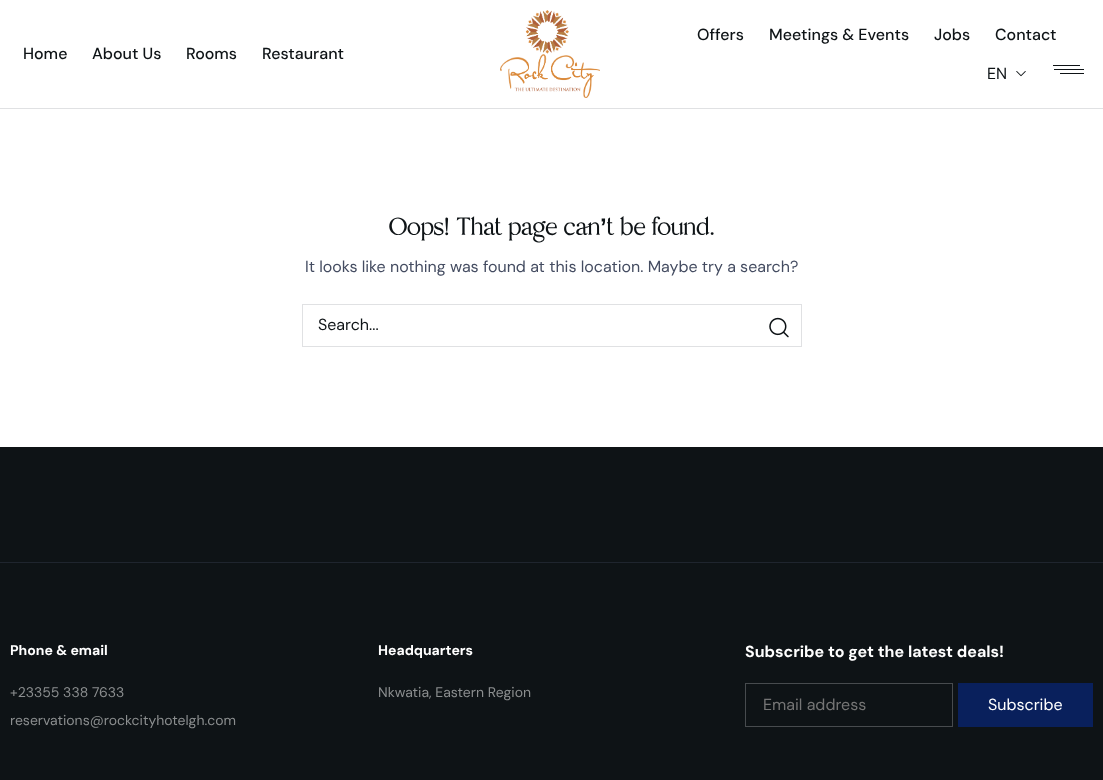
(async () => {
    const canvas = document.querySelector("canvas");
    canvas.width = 1103;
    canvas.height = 780;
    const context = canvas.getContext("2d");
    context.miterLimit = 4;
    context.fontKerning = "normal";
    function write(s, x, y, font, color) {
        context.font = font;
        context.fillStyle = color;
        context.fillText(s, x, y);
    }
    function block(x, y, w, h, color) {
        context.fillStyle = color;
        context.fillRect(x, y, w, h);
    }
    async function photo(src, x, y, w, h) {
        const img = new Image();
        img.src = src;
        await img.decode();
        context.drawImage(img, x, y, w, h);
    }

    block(0, 0, 1103, 780, "rgb(255, 255, 255)");
    block(0, 108, 1103, 1, "rgb(224, 225, 227)");
    write("Home", 23, 59, "500 16px DM Sans", "rgb(14, 19, 22)");
    write("About Us", 92, 59, "500 16px DM Sans", "rgb(14, 19, 22)");
    write("Rooms", 186, 59, "500 16px DM Sans", "rgb(14, 19, 22)");
    write("Restaurant", 262, 59, "500 16px DM Sans", "rgb(14, 19, 22)");
    await photo("media/1.png", 500, 10, 100, 88);
    write("Offers", 697, 40, "500 16px DM Sans", "rgb(14, 19, 22)");
    write("Meetings & Events", 769, 40, "500 16px DM Sans", "rgb(14, 19, 22)");
    write("Jobs", 934, 40, "500 16px DM Sans", "rgb(14, 19, 22)");
    write("Contact", 995, 40, "500 16px DM Sans", "rgb(14, 19, 22)");
    write("EN", 987, 79, "16px DM Sans", "rgb(14, 19, 22)");
    await photo("media/2.png", 1016, 71, 10, 6);
    await photo("media/3.png", 1053, 65, 31, 9);
    write("Oops! That page can", 388, 235, "bold 24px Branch", "rgb(14, 19, 22)");
    write("’", 600, 235, "bold 24px Liberation Sans", "rgb(14, 19, 22)");
    write("t be found.", 606, 235, "bold 24px Branch", "rgb(14, 19, 22)");
    write("It looks like nothing was found at this location. Maybe try a search?", 305, 272, "16px DM Sans", "rgb(68, 76, 97)");
    context.strokeStyle = "rgb(224, 225, 227)";
    context.strokeRect(302.5, 304.5, 499, 42);
    write("Search...", 318, 330, "16px DM Sans", "rgb(14, 19, 22)");
    await photo("media/4.png", 769, 317, 20, 21);
    block(0, 447, 1103, 333, "rgb(14, 19, 22)");
    block(0, 562, 1103, 1, "rgb(31, 37, 46)");
    write("Phone & email", 10, 655, "bold 14px DM Sans", "rgb(255, 255, 255)");
    write("+23355 338 7633", 10, 697, "14px DM Sans", "rgb(139, 142, 143)");
    write("reservations@rockcityhotelgh.com", 10, 725, "14px DM Sans", "rgb(139, 142, 143)");
    write("Headquarters", 378, 655, "bold 14px DM Sans", "rgb(255, 255, 255)");
    write("Nkwatia, Eastern Region", 378, 697, "14px DM Sans", "rgb(139, 142, 143)");
    write("Subscribe to get the latest deals!", 745, 657, "bold 16px DM Sans", "rgb(255, 255, 255)");
    context.strokeStyle = "rgb(71, 75, 78)";
    context.strokeRect(745.5, 683.5, 207, 43);
    write("Email address", 763, 710, "16px DM Sans", "rgb(117, 117, 117)");
    block(958, 683, 135, 44, "rgb(9, 32, 92)");
    write("Subscribe", 988, 710, "16px DM Sans", "rgb(255, 255, 255)");
})();
